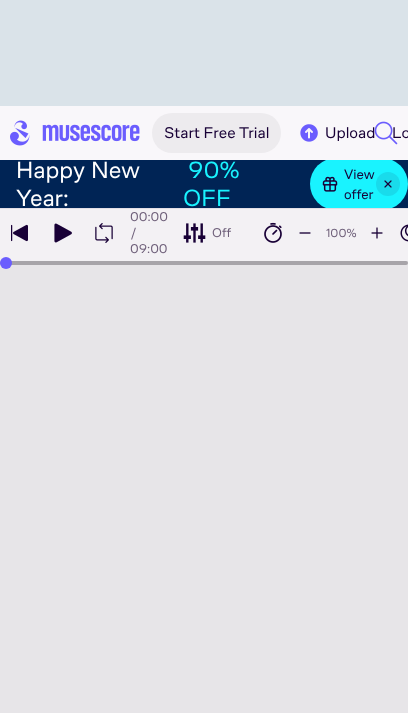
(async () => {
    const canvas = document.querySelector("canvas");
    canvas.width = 408;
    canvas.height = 713;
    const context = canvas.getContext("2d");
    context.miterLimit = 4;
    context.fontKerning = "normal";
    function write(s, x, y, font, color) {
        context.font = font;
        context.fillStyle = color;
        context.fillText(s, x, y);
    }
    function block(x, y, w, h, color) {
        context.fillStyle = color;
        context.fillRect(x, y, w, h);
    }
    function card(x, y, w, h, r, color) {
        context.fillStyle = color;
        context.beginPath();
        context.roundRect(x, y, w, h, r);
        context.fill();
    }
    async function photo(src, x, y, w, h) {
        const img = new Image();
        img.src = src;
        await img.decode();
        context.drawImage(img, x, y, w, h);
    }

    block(0, 0, 408, 713, "rgb(249, 247, 250)");
    block(0, 208, 408, 1, "rgb(226, 222, 230)");
    block(0, 0, 408, 106, "rgb(218, 227, 233)");
    await photo("media/1.png", 10, 120, 130, 26);
    write("Upload", 325, 138, "16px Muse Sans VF", "rgb(24, 0, 54)");
    write("Lo", 392, 138, "16px Muse Sans VF", "rgb(24, 0, 54)");
    await photo("media/2.png", 374, 121, 24, 24);
    card(152, 113, 129, 40, 20, "rgb(237, 235, 238)");
    write("Start Free Trial", 164, 138, "16px Muse Sans VF", "rgb(24, 0, 54)");
    await photo("media/3.png", 300, 124, 18, 18);
    block(0, 160, 408, 48, "rgb(0, 36, 85)");
    write("Happy", 16, 178, "24px Muse Sans VF", "rgb(255, 255, 255)");
    write("New", 91, 178, "24px Muse Sans VF", "rgb(255, 255, 255)");
    write("90%", 188, 178, "24px Muse Sans VF", "rgb(25, 243, 255)");
    write("OFF", 183, 206, "24px Muse Sans VF", "rgb(25, 243, 255)");
    write("Year:", 16, 206, "24px Muse Sans VF", "rgb(255, 255, 255)");
    block(0, 209, 408, 52, "rgb(243, 241, 244)");
    context.save();
    context.beginPath();
    context.rect(0, 160, 408, 48);
    context.clip();
    card(310, 158, 98, 52, 26, "rgb(25, 243, 255)");
    context.restore();
    write("View", 344, 179, "14px Muse Sans VF", "rgb(24, 0, 54)");
    await photo("media/4.png", 322, 176, 16, 16);
    write("offer", 344, 199, "14px Muse Sans VF", "rgb(24, 0, 54)");
    context.fillStyle = "rgb(25, 219, 235)";
    context.beginPath();
    context.arc(388, 184, 12, 0, Math.PI * 2);
    context.fill();
    await photo("media/5.png", 384, 180, 8, 8);
    block(0, 261, 408, 452, "rgb(231, 229, 232)");
    card(0, 261, 408, 4, 2, "rgb(167, 164, 169)");
    context.fillStyle = "rgb(107, 93, 254)";
    context.beginPath();
    context.arc(6, 263, 6, 0, Math.PI * 2);
    context.fill();
    await photo("media/6.png", 11, 224, 17, 18);
    await photo("media/7.png", 54, 223, 18, 20);
    await photo("media/8.png", 95, 223, 18, 20);
    write("00:00", 130, 221, "13px Muse Sans VF", "rgb(110, 95, 121)");
    write("/", 130, 237, "13px Muse Sans VF", "rgb(110, 95, 121)");
    write("09:00", 130, 253, "13px Muse Sans VF", "rgb(110, 95, 121)");
    await photo("media/9.png", 183, 223, 23, 20);
    write("Off", 212, 237, "13px Muse Sans VF", "rgb(110, 95, 121)");
    await photo("media/10.png", 264, 222, 18, 21);
    await photo("media/11.png", 299, 232, 12, 2);
    write("100%", 326, 237, "12px Muse Sans VF", "rgb(110, 95, 121)");
    await photo("media/12.png", 371, 227, 12, 12);
    await photo("media/13.png", 400, 224, 8, 18);
})();
